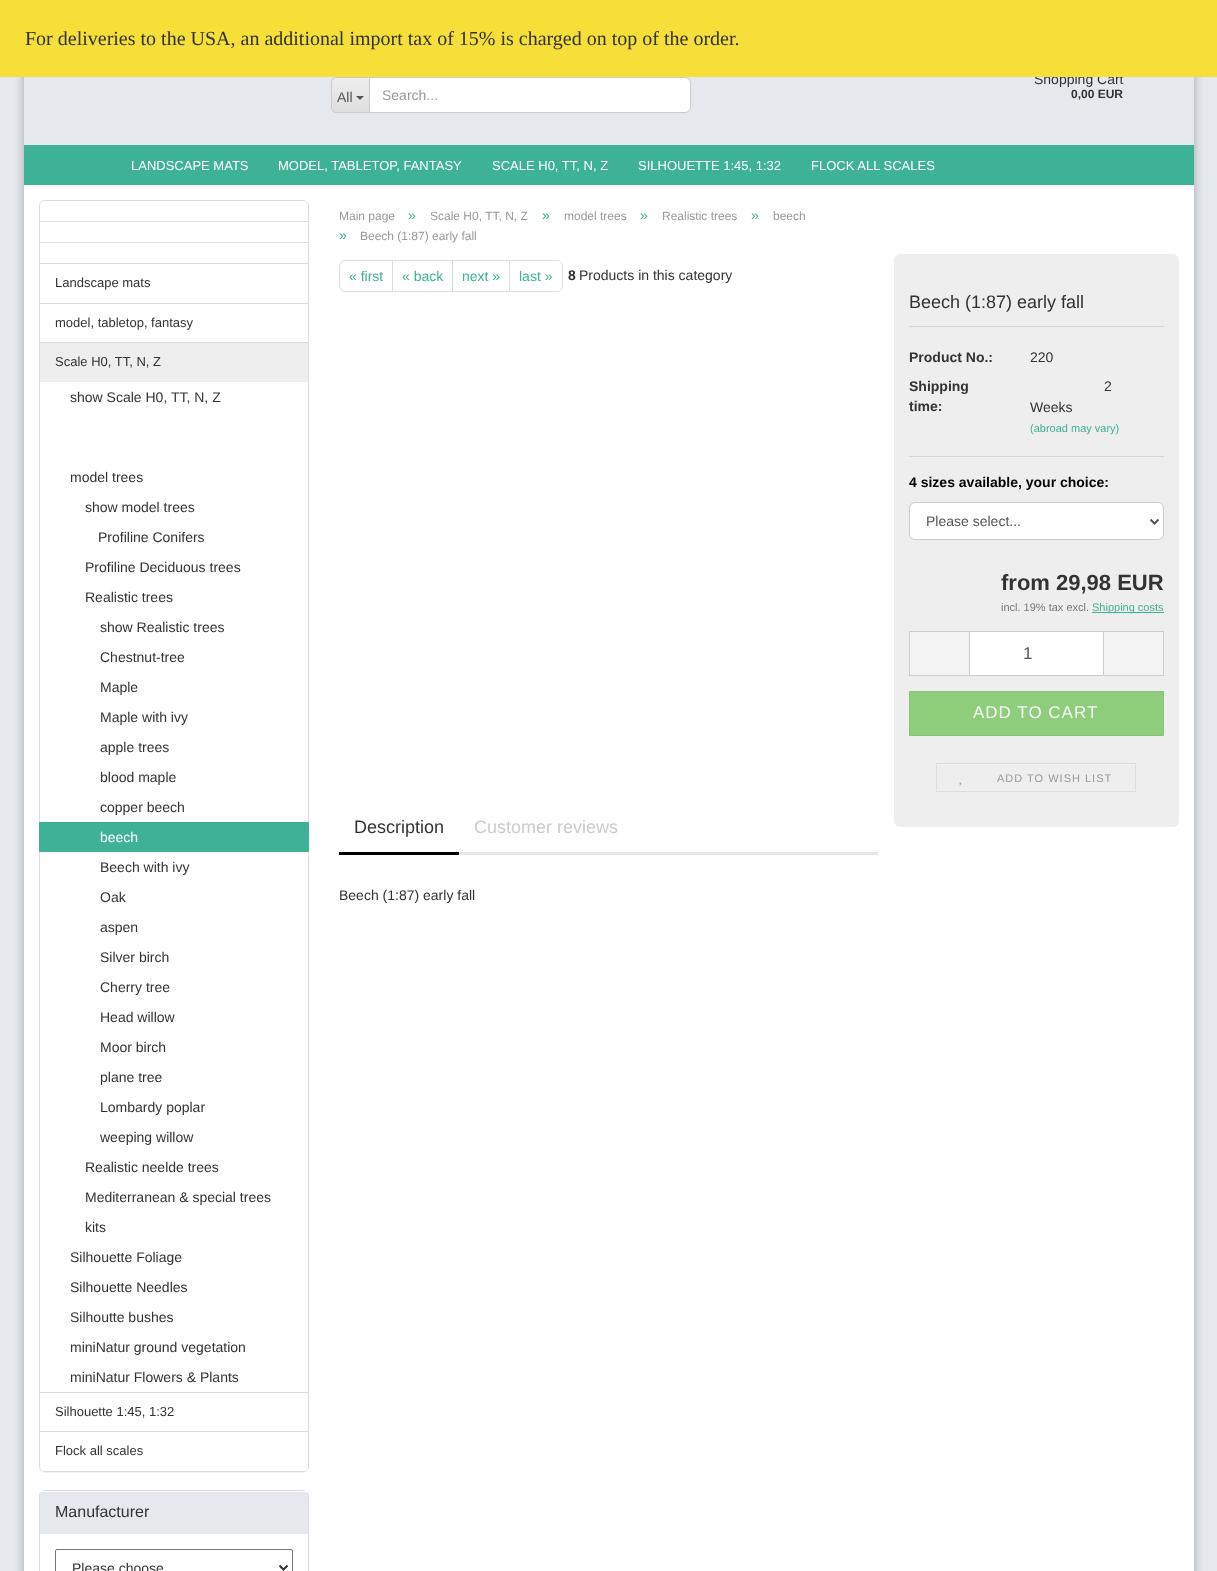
(async () => {
    const canvas = document.querySelector("canvas");
    canvas.width = 1217;
    canvas.height = 1571;
    const context = canvas.getContext("2d");
    context.miterLimit = 4;
    context.fontKerning = "normal";
    function write(s, x, y, font, color) {
        context.font = font;
        context.fillStyle = color;
        context.fillText(s, x, y);
    }
    function block(x, y, w, h, color) {
        context.fillStyle = color;
        context.fillRect(x, y, w, h);
    }
    function card(x, y, w, h, r, color) {
        context.fillStyle = color;
        context.beginPath();
        context.roundRect(x, y, w, h, r);
        context.fill();
    }
    async function photo(src, x, y, w, h) {
        const img = new Image();
        img.src = src;
        await img.decode();
        context.drawImage(img, x, y, w, h);
    }
    let gradient;

    block(0, 0, 1217, 1571, "rgb(229, 232, 237)");
    context.fillStyle = "rgba(0, 0, 0, 0.3)";
    context.filter = "blur(5px)";
    context.beginPath();
    context.roundRect(24, 45, 1170, 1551, 10);
    context.fill();
    context.filter = "none";
    block(24, 185, 1170, 1386, "rgb(255, 255, 255)");
    block(24, 77, 1170, 68, "rgb(229, 232, 237)");
    write("Shopping Cart", 1034, 84, "14px Liberation Sans", "rgb(51, 51, 51)");
    block(0, 0, 1217, 77, "rgb(245, 223, 56)");
    write("For deliveries to the USA, an additional import tax of 15% is charged on top of the order.", 25, 45, "20px Liberation Serif", "rgb(51, 51, 51)");
    context.save();
    context.beginPath();
    context.roundRect(331, 77, 38, 36, [6, 0, 0, 6]);
    context.clip();
    gradient = context.createLinearGradient(351, 78, 351, 112);
    gradient.addColorStop(0, "rgb(238, 238, 238)");
    gradient.addColorStop(1, "rgb(222, 222, 222)");
    context.fillStyle = gradient;
    context.fillRect(331, 78, 38, 34);
    context.restore();
    context.fillStyle = "rgb(204, 204, 204)";
    context.beginPath();
    context.moveTo(337, 77);
    context.lineTo(369, 77);
    context.lineTo(369, 113);
    context.lineTo(337, 113);
    context.bezierCurveTo(333.5, 113, 331, 110.5, 331, 107);
    context.lineTo(331, 83);
    context.bezierCurveTo(331, 79.5, 333.5, 77, 337, 77);
    context.closePath();
    context.moveTo(337, 78);
    context.lineTo(369, 78);
    context.lineTo(369, 112);
    context.lineTo(337, 112);
    context.bezierCurveTo(334, 112, 332, 110, 332, 107);
    context.lineTo(332, 83);
    context.bezierCurveTo(332, 80, 334, 78, 337, 78);
    context.closePath();
    context.fill("evenodd");
    write("All", 337, 102, "14px Liberation Sans", "rgb(85, 85, 85)");
    context.beginPath();
    context.moveTo(356, 96);
    context.lineTo(364, 96);
    context.lineTo(360, 100);
    context.closePath();
    context.fill();
    context.fillStyle = "rgb(255, 255, 255)";
    context.beginPath();
    context.roundRect(369.5, 77.5, 321, 35, [0, 5.5, 5.5, 0]);
    context.fill();
    context.strokeStyle = "rgb(204, 204, 204)";
    context.stroke();
    write("Search...", 382, 100, "14px Liberation Sans", "rgb(153, 153, 153)");
    write("0,00 EUR", 1071, 98, "bold 12px Liberation Sans", "rgb(51, 51, 51)");
    block(24, 145, 1170, 40, "rgb(62, 178, 148)");
    write("LANDSCAPE MATS", 131, 170, "13px Liberation Sans", "rgb(255, 255, 255)");
    write("MODEL, TABLETOP, FANTASY", 278, 170, "13px Liberation Sans", "rgb(255, 255, 255)");
    write("SCALE H0, TT, N, Z", 492, 170, "13px Liberation Sans", "rgb(255, 255, 255)");
    write("SILHOUETTE 1:45, 1:32", 638, 170, "13px Liberation Sans", "rgb(255, 255, 255)");
    write("FLOCK ALL SCALES", 811, 170, "13px Liberation Sans", "rgb(255, 255, 255)");
    context.fillStyle = "rgba(0, 0, 0, 0.05)";
    context.filter = "blur(0.5px)";
    context.beginPath();
    context.roundRect(39, 201, 270, 1272, 6);
    context.fill();
    context.filter = "none";
    card(39, 200, 270, 1272, 6, "rgb(255, 255, 255)");
    context.fillStyle = "rgb(221, 221, 221)";
    context.beginPath();
    context.moveTo(45, 200);
    context.lineTo(303, 200);
    context.bezierCurveTo(306, 200, 309, 203, 309, 206);
    context.lineTo(309, 1466);
    context.bezierCurveTo(309, 1469, 306, 1472, 303, 1472);
    context.lineTo(45, 1472);
    context.bezierCurveTo(42, 1472, 39, 1469, 39, 1466);
    context.lineTo(39, 206);
    context.bezierCurveTo(39, 203, 42, 200, 45, 200);
    context.closePath();
    context.moveTo(45, 201);
    context.lineTo(303, 201);
    context.bezierCurveTo(306, 201, 308, 203, 308, 206);
    context.lineTo(308, 1466);
    context.bezierCurveTo(308, 1469, 306, 1472, 303, 1472);
    context.lineTo(45, 1472);
    context.bezierCurveTo(42, 1472, 40, 1469, 40, 1466);
    context.lineTo(40, 206);
    context.bezierCurveTo(40, 203, 42, 201, 45, 201);
    context.closePath();
    context.fill("evenodd");
    block(40, 221, 268, 1, "rgb(221, 221, 221)");
    context.fillStyle = "rgb(255, 255, 255)";
    context.beginPath();
    context.roundRect(40, 201, 268, 20, [6, 6, 0, 0]);
    context.fill();
    block(40, 242, 268, 1, "rgb(221, 221, 221)");
    block(40, 263, 268, 1, "rgb(221, 221, 221)");
    block(40, 303, 268, 1, "rgb(221, 221, 221)");
    write("Landscape mats", 55, 287, "13px Liberation Sans", "rgb(51, 51, 51)");
    block(40, 342, 268, 1, "rgb(221, 221, 221)");
    write("model, tabletop, fantasy", 55, 327, "13px Liberation Sans", "rgb(51, 51, 51)");
    block(40, 1392, 268, 1, "rgb(221, 221, 221)");
    block(40, 343, 268, 39, "rgb(238, 238, 238)");
    write("Scale H0, TT, N, Z", 55, 366, "13px Liberation Sans", "rgb(51, 51, 51)");
    write("show Scale H0, TT, N, Z", 70, 402, "14px Liberation Sans", "rgb(51, 51, 51)");
    write("model trees", 70, 482, "14px Liberation Sans", "rgb(51, 51, 51)");
    write("show model trees", 85, 512, "14px Liberation Sans", "rgb(51, 51, 51)");
    write("Profiline Conifers", 98, 542, "14px Liberation Sans", "rgb(51, 51, 51)");
    write("Profiline Deciduous trees", 85, 572, "14px Liberation Sans", "rgb(51, 51, 51)");
    write("Realistic trees", 85, 602, "14px Liberation Sans", "rgb(51, 51, 51)");
    write("show Realistic trees", 100, 632, "14px Liberation Sans", "rgb(51, 51, 51)");
    write("Chestnut-tree", 100, 662, "14px Liberation Sans", "rgb(51, 51, 51)");
    write("Maple", 100, 692, "14px Liberation Sans", "rgb(51, 51, 51)");
    write("Maple with ivy", 100, 722, "14px Liberation Sans", "rgb(51, 51, 51)");
    write("apple trees", 100, 752, "14px Liberation Sans", "rgb(51, 51, 51)");
    write("blood maple", 100, 782, "14px Liberation Sans", "rgb(51, 51, 51)");
    write("copper beech", 100, 812, "14px Liberation Sans", "rgb(51, 51, 51)");
    block(39, 822, 270, 30, "rgb(62, 178, 148)");
    write("beech", 100, 842, "14px Liberation Sans", "rgb(255, 255, 255)");
    write("Beech with ivy", 100, 872, "14px Liberation Sans", "rgb(51, 51, 51)");
    write("Oak", 100, 902, "14px Liberation Sans", "rgb(51, 51, 51)");
    write("aspen", 100, 932, "14px Liberation Sans", "rgb(51, 51, 51)");
    write("Silver birch", 100, 962, "14px Liberation Sans", "rgb(51, 51, 51)");
    write("Cherry tree", 100, 992, "14px Liberation Sans", "rgb(51, 51, 51)");
    write("Head willow", 100, 1022, "14px Liberation Sans", "rgb(51, 51, 51)");
    write("Moor birch", 100, 1052, "14px Liberation Sans", "rgb(51, 51, 51)");
    write("plane tree", 100, 1082, "14px Liberation Sans", "rgb(51, 51, 51)");
    write("Lombardy poplar", 100, 1112, "14px Liberation Sans", "rgb(51, 51, 51)");
    write("weeping willow", 100, 1142, "14px Liberation Sans", "rgb(51, 51, 51)");
    write("Realistic neelde trees", 85, 1172, "14px Liberation Sans", "rgb(51, 51, 51)");
    write("Mediterranean & special trees", 85, 1202, "14px Liberation Sans", "rgb(51, 51, 51)");
    write("kits", 85, 1232, "14px Liberation Sans", "rgb(51, 51, 51)");
    write("Silhouette Foliage", 70, 1262, "14px Liberation Sans", "rgb(51, 51, 51)");
    write("Silhouette Needles", 70, 1292, "14px Liberation Sans", "rgb(51, 51, 51)");
    write("Silhoutte bushes", 70, 1322, "14px Liberation Sans", "rgb(51, 51, 51)");
    write("miniNatur ground vegetation", 70, 1352, "14px Liberation Sans", "rgb(51, 51, 51)");
    write("miniNatur Flowers & Plants", 70, 1382, "14px Liberation Sans", "rgb(51, 51, 51)");
    block(40, 1431, 268, 1, "rgb(221, 221, 221)");
    write("Silhouette 1:45, 1:32", 55, 1416, "13px Liberation Sans", "rgb(51, 51, 51)");
    block(43, 1471, 262, 1, "rgb(221, 221, 221)");
    context.fillStyle = "rgb(255, 255, 255)";
    context.beginPath();
    context.roundRect(40, 1432, 268, 39, [0, 0, 6, 6]);
    context.fill();
    write("Flock all scales", 55, 1455, "13px Liberation Sans", "rgb(51, 51, 51)");
    context.beginPath();
    context.roundRect(39.5, 1490.5, 269, 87, 5.5);
    context.strokeStyle = "rgb(221, 221, 221)";
    context.stroke();
    context.fillStyle = "rgb(229, 232, 237)";
    context.beginPath();
    context.roundRect(40, 1491, 268, 43, [1, 1, 0, 0]);
    context.fill();
    context.fillStyle = "rgb(255, 255, 255)";
    context.beginPath();
    context.moveTo(41, 1492);
    context.lineTo(307, 1492);
    context.bezierCurveTo(308, 1492, 308, 1492, 308, 1493);
    context.bezierCurveTo(308, 1492, 308, 1491, 307, 1491);
    context.lineTo(40, 1491);
    context.lineTo(40, 1493);
    context.closePath();
    context.fill();
    write("Manufacturer", 55, 1517, "16px Liberation Sans", "rgb(51, 51, 51)");
    context.beginPath();
    context.roundRect(55.5, 1549.5, 237, 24, 1.5);
    context.strokeStyle = "rgb(118, 118, 118)";
    context.stroke();
    context.beginPath();
    context.moveTo(279.5, 1565.5);
    context.lineTo(283.5, 1569.5);
    context.lineTo(287.5, 1565.5);
    context.strokeStyle = "rgb(51, 51, 51)";
    context.lineWidth = 2;
    context.stroke();
    write("Please choose", 72, 1573, "14px Liberation Sans", "rgb(51, 51, 51)");
    write("Main page", 339, 220, "12px Liberation Sans", "rgb(153, 153, 153)");
    write("»", 408, 220, "14px Liberation Sans", "rgb(62, 178, 148)");
    write("Scale H0, TT, N, Z", 430, 220, "12px Liberation Sans", "rgb(153, 153, 153)");
    write("»", 542, 220, "14px Liberation Sans", "rgb(62, 178, 148)");
    write("model trees", 564, 220, "12px Liberation Sans", "rgb(153, 153, 153)");
    write("»", 640, 220, "14px Liberation Sans", "rgb(62, 178, 148)");
    write("Realistic trees", 662, 220, "12px Liberation Sans", "rgb(153, 153, 153)");
    write("»", 751, 220, "14px Liberation Sans", "rgb(62, 178, 148)");
    write("beech", 773, 220, "12px Liberation Sans", "rgb(153, 153, 153)");
    write("»", 339, 240, "14px Liberation Sans", "rgb(62, 178, 148)");
    write("Beech (1:87) early fall", 360, 240, "12px Liberation Sans", "rgb(153, 153, 153)");
    context.beginPath();
    context.roundRect(339.5, 260.5, 53, 31, [5.5, 0, 0, 5.5]);
    context.strokeStyle = "rgb(221, 221, 221)";
    context.lineWidth = 1;
    context.stroke();
    write("« first", 349, 281, "14px Liberation Sans", "rgb(62, 178, 148)");
    context.strokeRect(392.5, 260.5, 60, 31);
    write("« back", 402, 281, "14px Liberation Sans", "rgb(62, 178, 148)");
    context.strokeRect(452.5, 260.5, 57, 31);
    write("next »", 462, 281, "14px Liberation Sans", "rgb(62, 178, 148)");
    context.fillStyle = "rgb(255, 255, 255)";
    context.beginPath();
    context.roundRect(509.5, 260.5, 53, 31, [0, 5.5, 5.5, 0]);
    context.fill();
    context.stroke();
    write("last »", 519, 281, "14px Liberation Sans", "rgb(62, 178, 148)");
    write("8", 568, 280, "bold 14px Liberation Sans", "rgb(51, 51, 51)");
    write("Products in this category", 579, 280, "14px Liberation Sans", "rgb(51, 51, 51)");
    card(894, 254, 285, 573, 6, "rgb(238, 238, 238)");
    block(909, 326, 255, 1, "rgb(213, 213, 213)");
    write("Beech (1:87) early fall", 909, 308, "18px Liberation Sans", "rgb(51, 51, 51)");
    block(909, 456, 255, 1, "rgb(213, 213, 213)");
    write("Product No.:", 909, 362, "bold 14px Liberation Sans", "rgb(51, 51, 51)");
    write("220", 1030, 362, "14px Liberation Sans", "rgb(51, 51, 51)");
    write("Shipping", 909, 391, "bold 14px Liberation Sans", "rgb(51, 51, 51)");
    write("time:", 909, 411, "bold 14px Liberation Sans", "rgb(51, 51, 51)");
    write("2", 1104, 391, "14px Liberation Sans", "rgb(51, 51, 51)");
    write("Weeks", 1030, 412, "14px Liberation Sans", "rgb(51, 51, 51)");
    write("(abroad may vary)", 1030, 432, "11px Liberation Sans", "rgb(62, 178, 148)");
    write("4 sizes available, your choice:", 909, 487, "bold 14px Liberation Sans", "rgb(0, 0, 0)");
    context.fillStyle = "rgb(255, 255, 255)";
    context.beginPath();
    context.roundRect(909.5, 502.5, 254, 37, 5.5);
    context.fill();
    context.strokeStyle = "rgb(204, 204, 204)";
    context.stroke();
    context.beginPath();
    context.moveTo(1150.5, 519.5);
    context.lineTo(1154.5, 523.5);
    context.lineTo(1158.5, 519.5);
    context.strokeStyle = "rgb(85, 85, 85)";
    context.lineWidth = 2;
    context.stroke();
    write("Please select...", 926, 526, "14px Liberation Sans", "rgb(85, 85, 85)");
    write("from 29,98 EUR", 1001, 590, "bold 22px Liberation Sans", "rgb(51, 51, 51)");
    write("incl. 19% tax excl.", 1001, 611, "11px Liberation Sans", "rgb(119, 119, 119)");
    block(1092, 612, 72, 1, "rgb(62, 178, 148)");
    write("Shipping costs", 1092, 611, "11px Liberation Sans", "rgb(62, 178, 148)");
    block(910, 632, 59, 43, "rgb(243, 243, 243)");
    block(909, 631, 60, 1, "rgb(204, 204, 204)");
    block(909, 675, 60, 1, "rgb(204, 204, 204)");
    block(909, 631, 1, 45, "rgb(204, 204, 204)");
    context.fillStyle = "rgb(255, 255, 255)";
    context.beginPath();
    context.rect(969.5, 631.5, 134, 44);
    context.fill();
    context.strokeStyle = "rgb(204, 204, 204)";
    context.lineWidth = 1;
    context.stroke();
    write("1", 1023, 659, "17px Liberation Sans", "rgb(85, 85, 85)");
    block(1104, 632, 59, 43, "rgb(243, 243, 243)");
    block(1104, 631, 60, 1, "rgb(204, 204, 204)");
    block(1163, 631, 1, 45, "rgb(204, 204, 204)");
    block(1104, 675, 60, 1, "rgb(204, 204, 204)");
    context.fillStyle = "rgb(142, 206, 122)";
    context.beginPath();
    context.rect(909.5, 691.5, 254, 44);
    context.fill();
    context.strokeStyle = "rgb(139, 194, 122)";
    context.stroke();
    context.letterSpacing = "1px";
    write("ADD TO CART", 973, 718, "17px Liberation Sans", "rgb(247, 247, 247)");
    context.strokeStyle = "rgb(221, 221, 221)";
    context.strokeRect(936.5, 763.5, 199, 28);
    write("ADD TO WISH LIST", 997, 782, "11px Liberation Sans", "rgb(153, 153, 153)");
    await photo("media/1.png", 959, 782, 3, 4);
    block(459, 852, 419, 3, "rgb(231, 231, 231)");
    block(339, 852, 120, 3, "rgb(0, 0, 0)");
    context.letterSpacing = "0px";
    write("Description", 354, 833, "18px Liberation Sans", "rgb(51, 51, 51)");
    write("Customer reviews", 474, 833, "18px Liberation Sans", "rgb(204, 204, 204)");
    write("Beech (1:87) early fall", 339, 900, "14px Liberation Sans", "rgb(51, 51, 51)");
})();
